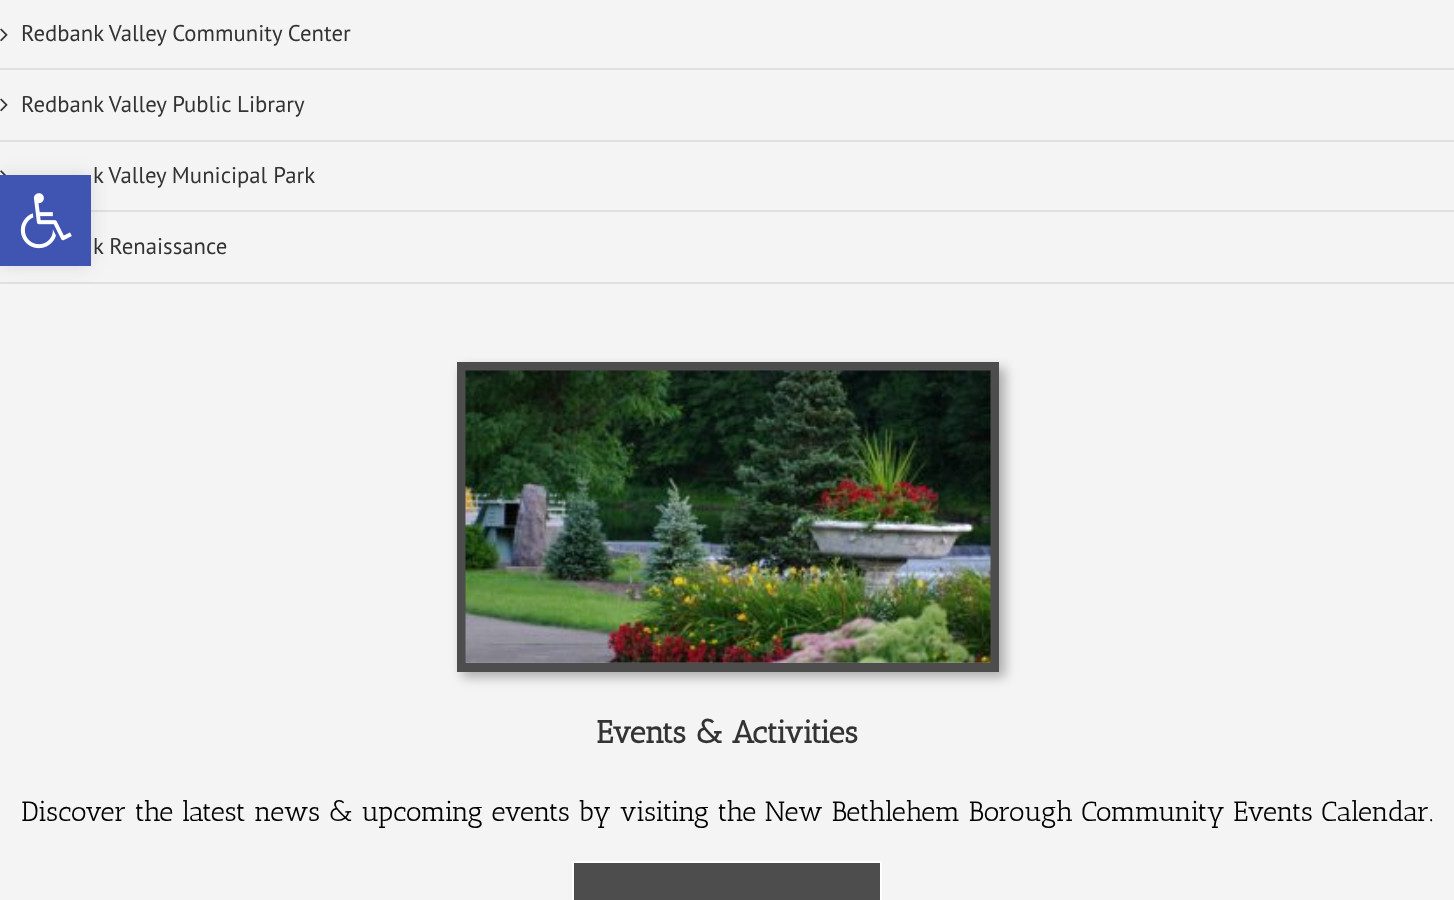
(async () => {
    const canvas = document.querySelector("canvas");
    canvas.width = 1454;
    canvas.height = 900;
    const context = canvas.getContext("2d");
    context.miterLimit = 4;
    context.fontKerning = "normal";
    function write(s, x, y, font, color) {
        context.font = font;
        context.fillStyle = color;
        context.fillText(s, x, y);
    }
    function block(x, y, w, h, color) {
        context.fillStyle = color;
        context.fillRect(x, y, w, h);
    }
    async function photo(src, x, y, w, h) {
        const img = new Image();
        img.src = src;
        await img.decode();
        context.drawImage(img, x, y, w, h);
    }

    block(0, 0, 1454, 900, "rgb(244, 244, 244)");
    block(0, 68, 1454, 2, "rgb(224, 222, 222)");
    await photo("media/1.png", 0, 28, 8, 14);
    write("Redbank Valley Community Center", 21, 41, "22.75px PT Sans", "rgb(51, 51, 51)");
    block(0, 140, 1454, 2, "rgb(224, 222, 222)");
    await photo("media/1.png", 0, 98, 8, 14);
    write("Redbank Valley Public Library", 21, 112, "22.75px PT Sans", "rgb(51, 51, 51)");
    block(91, 210, 1363, 2, "rgb(224, 222, 222)");
    await photo("media/2.png", 0, 170, 6, 5);
    write("k Valley Municipal Park", 93, 183, "22.75px PT Sans", "rgb(51, 51, 51)");
    block(0, 282, 1454, 2, "rgb(224, 222, 222)");
    write("k Renaissance", 93, 254, "22.75px PT Sans", "rgb(51, 51, 51)");
    context.fillStyle = "rgba(0, 0, 0, 0.3)";
    context.filter = "blur(6px)";
    context.beginPath();
    context.rect(462, 368, 543, 309);
    context.fill();
    context.filter = "none";
    context.strokeStyle = "rgb(77, 77, 77)";
    context.lineWidth = 9;
    context.strokeRect(461.5, 366.5, 533, 301);
    await photo("media/3.png", 465, 370, 526, 293);
    write("Events & Activities", 596, 743, "bold 31.5px Antic Slab", "rgb(51, 51, 51)");
    write("Discover the latest news & upcoming events by visiting the New Bethlehem Borough Community Events Calendar.", 21, 821, "28px Antic Slab", "rgb(0, 0, 0)");
    context.fillStyle = "rgb(77, 77, 77)";
    context.beginPath();
    context.roundRect(573, 862, 308, 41, 1);
    context.fill();
    context.strokeStyle = "rgb(255, 255, 255)";
    context.lineWidth = 2;
    context.stroke();
    context.fillStyle = "rgba(0, 0, 0, 0.1)";
    context.filter = "blur(9px)";
    context.beginPath();
    context.rect(0, 175, 91, 91);
    context.fill();
    context.filter = "none";
    block(0, 175, 91, 91, "rgb(64, 84, 178)");
    await photo("media/4.png", 20, 193, 52, 56);
})();
